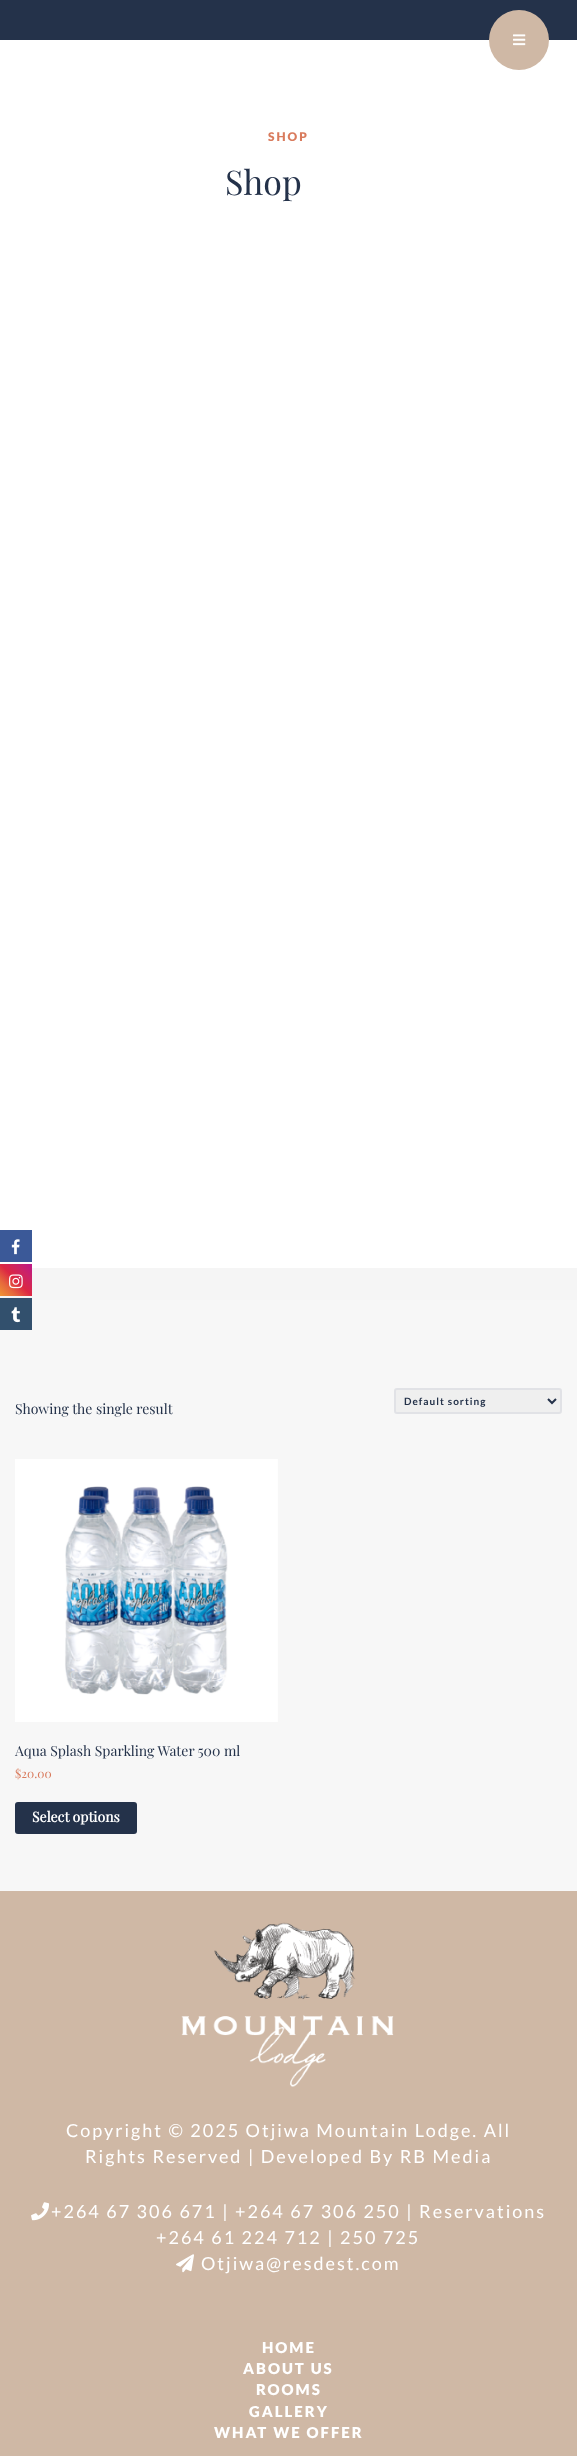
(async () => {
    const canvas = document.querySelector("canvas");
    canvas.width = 577;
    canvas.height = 2456;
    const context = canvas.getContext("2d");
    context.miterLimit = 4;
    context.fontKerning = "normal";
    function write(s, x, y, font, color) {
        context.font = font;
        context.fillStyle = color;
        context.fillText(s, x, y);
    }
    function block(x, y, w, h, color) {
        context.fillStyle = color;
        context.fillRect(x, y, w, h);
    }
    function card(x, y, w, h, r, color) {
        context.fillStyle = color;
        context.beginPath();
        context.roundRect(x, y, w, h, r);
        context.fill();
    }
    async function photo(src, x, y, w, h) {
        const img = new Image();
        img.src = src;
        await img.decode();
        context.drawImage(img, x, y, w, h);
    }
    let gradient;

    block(0, 0, 577, 2456, "rgb(36, 50, 74)");
    block(0, 40, 577, 1228, "rgb(255, 255, 255)");
    context.fillStyle = "rgb(207, 184, 165)";
    context.beginPath();
    context.arc(519, 40, 30, 0, Math.PI * 2);
    context.fill();
    await photo("media/1.png", 513, 34, 13, 12);
    block(0, 1268, 577, 32, "rgb(245, 245, 245)");
    context.letterSpacing = "2px";
    write("SHOP", 268, 141, "900 12px Lato", "rgb(217, 123, 93)");
    context.letterSpacing = "0px";
    write("Shop", 225, 195, "34px Playfair Display", "rgb(36, 50, 74)");
    block(0, 1230, 32, 32, "rgb(59, 89, 152)");
    await photo("media/2.png", 11, 1239, 9, 16);
    gradient = context.createLinearGradient(0, 1296, 32, 1264);
    gradient.addColorStop(0, "rgb(240, 148, 51)");
    gradient.addColorStop(0.25, "rgb(230, 104, 60)");
    gradient.addColorStop(0.5, "rgb(220, 39, 67)");
    gradient.addColorStop(0.75, "rgb(204, 35, 102)");
    gradient.addColorStop(1, "rgb(188, 24, 136)");
    context.fillStyle = gradient;
    context.fillRect(0, 1264, 32, 32);
    await photo("media/3.png", 9, 1274, 14, 15);
    block(0, 1300, 577, 591, "rgb(247, 247, 247)");
    block(0, 1298, 32, 32, "rgb(50, 80, 109)");
    await photo("media/4.png", 11, 1307, 10, 16);
    context.fillStyle = "rgb(239, 239, 239)";
    context.beginPath();
    context.roundRect(395, 1389, 166, 24, 2);
    context.fill();
    context.strokeStyle = "rgb(225, 226, 230)";
    context.lineWidth = 2;
    context.stroke();
    context.beginPath();
    context.moveTo(548, 1399);
    context.lineTo(552, 1403);
    context.lineTo(556, 1399);
    context.strokeStyle = "rgb(36, 50, 74)";
    context.stroke();
    context.letterSpacing = "1px";
    write("Default sorting", 404, 1405, "bold 10px Lato", "rgb(36, 50, 74)");
    context.letterSpacing = "0px";
    write("Showing the single result", 15, 1414, "14px Playfair Display", "rgb(36, 50, 74)");
    await photo("media/5.png", 15, 1459, 263, 263);
    write("Aqua Splash Sparkling Water 500 ml", 15, 1756, "14px Playfair Display", "rgb(36, 50, 74)");
    write("$20.00", 15, 1778, "12px Playfair Display", "rgb(217, 123, 93)");
    card(15, 1802, 122, 32, 3, "rgb(36, 50, 74)");
    write("Select options", 32, 1822, "bold 14px Playfair Display", "rgb(255, 255, 255)");
    block(0, 1891, 577, 565, "rgb(207, 184, 165)");
    await photo("media/6.png", 181, 1922, 213, 165);
    context.letterSpacing = "2px";
    write("Copyright © 2025 Otjiwa Mountain Lodge. All", 66, 2137, "18px Lato", "rgb(255, 255, 255)");
    write("Rights Reserved | Developed By RB Media", 85, 2163, "18px Lato", "rgb(255, 255, 255)");
    await photo("media/7.png", 31, 2202, 18, 19);
    write("+264 67 306 671 | +264 67 306 250 | Reservations", 51, 2218, "18px Lato", "rgb(255, 255, 255)");
    write("+264 61 224 712 | 250 725", 156, 2244, "18px Lato", "rgb(255, 255, 255)");
    await photo("media/8.png", 176, 2254, 18, 19);
    write("Otjiwa@resdest.com", 201, 2270, "18px Lato", "rgb(255, 255, 255)");
    write("HOME", 262, 2353, "900 15px Lato", "rgb(255, 255, 255)");
    write("ABOUT US", 243, 2374, "900 15px Lato", "rgb(255, 255, 255)");
    write("ROOMS", 256, 2395, "900 15px Lato", "rgb(255, 255, 255)");
    write("GALLERY", 249, 2417, "900 15px Lato", "rgb(255, 255, 255)");
    write("WHAT WE OFFER", 214, 2438, "900 15px Lato", "rgb(255, 255, 255)");
})();
